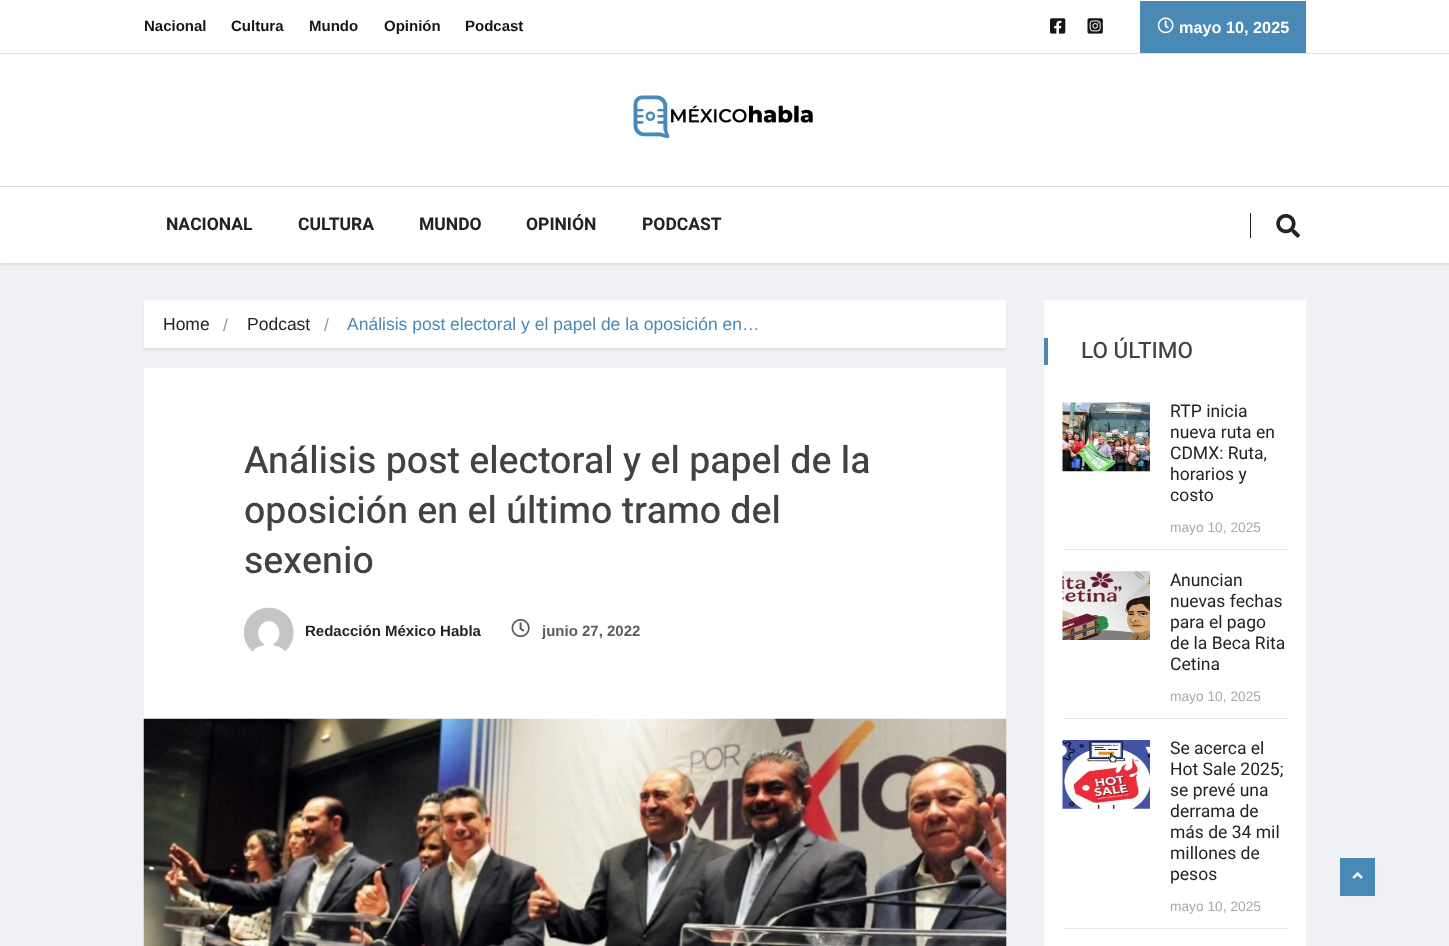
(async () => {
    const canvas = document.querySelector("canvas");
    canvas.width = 1449;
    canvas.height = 946;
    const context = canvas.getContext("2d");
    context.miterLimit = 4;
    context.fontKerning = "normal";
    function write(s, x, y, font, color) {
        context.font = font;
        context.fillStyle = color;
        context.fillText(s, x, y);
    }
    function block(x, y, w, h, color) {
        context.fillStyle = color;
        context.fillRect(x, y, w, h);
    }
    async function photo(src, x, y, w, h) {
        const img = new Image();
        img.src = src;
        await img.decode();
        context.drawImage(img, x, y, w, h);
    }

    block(0, 0, 1449, 946, "rgb(240, 241, 244)");
    block(0, 0, 1449, 53, "rgb(255, 255, 255)");
    write("Nacional", 144, 31, "bold 15px Arimo", "rgb(21, 21, 21)");
    write("Cultura", 231, 31, "bold 15px Arimo", "rgb(21, 21, 21)");
    write("Mundo", 309, 31, "bold 15px Arimo", "rgb(21, 21, 21)");
    write("Opinión", 384, 31, "bold 15px Arimo", "rgb(21, 21, 21)");
    write("Podcast", 465, 31, "bold 15px Arimo", "rgb(21, 21, 21)");
    await photo("media/1.png", 1050, 18, 16, 16);
    await photo("media/2.png", 1087, 18, 16, 16);
    block(1140, 1, 166, 52, "rgb(73, 137, 182)");
    await photo("media/3.png", 1157, 17, 17, 17);
    write("mayo 10, 2025", 1179, 33, "bold 16.25px Arimo", "rgb(255, 255, 255)");
    block(0, 54, 1449, 132, "rgb(255, 255, 255)");
    block(0, 53, 1449, 1, "rgb(222, 226, 230)");
    await photo("media/4.png", 633, 95, 180, 44);
    context.fillStyle = "rgba(0, 0, 0, 0.08)";
    context.filter = "blur(1px)";
    context.beginPath();
    context.rect(0, 189, 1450, 76);
    context.fill();
    context.filter = "none";
    block(0, 187, 1449, 76, "rgb(255, 255, 255)");
    block(0, 186, 1449, 1, "rgb(221, 221, 221)");
    write("NACIONAL", 166, 230, "bold 17.5px Heebo", "rgb(35, 35, 35)");
    write("CULTURA", 298, 230, "bold 17.5px Heebo", "rgb(35, 35, 35)");
    write("MUNDO", 419, 230, "bold 17.5px Heebo", "rgb(35, 35, 35)");
    write("OPINIÓN", 526, 230, "bold 17.5px Heebo", "rgb(35, 35, 35)");
    write("PODCAST", 642, 230, "bold 17.5px Heebo", "rgb(35, 35, 35)");
    block(1250, 213, 1, 25, "rgb(35, 35, 35)");
    await photo("media/5.png", 1276, 214, 24, 24);
    context.fillStyle = "rgba(0, 0, 0, 0.08)";
    context.filter = "blur(1px)";
    context.beginPath();
    context.rect(144, 303, 862, 47);
    context.fill();
    context.filter = "none";
    block(144, 300, 862, 48, "rgb(255, 255, 255)");
    write("Home", 163, 330, "17.5px Arimo", "rgb(35, 35, 35)");
    write("/", 223, 331, "17.5px Arimo", "rgb(153, 153, 153)");
    write("Podcast", 247, 330, "17.5px Arimo", "rgb(35, 35, 35)");
    write("/", 324, 331, "17.5px Arimo", "rgb(153, 153, 153)");
    write("Análisis post electoral y el papel de la oposición en…", 347, 330, "17.5px Arimo", "rgb(73, 137, 182)");
    block(144, 368, 862, 351, "rgb(255, 255, 255)");
    write("Análisis post electoral y el papel de la", 244, 473, "500 37.5px Heebo", "rgb(66, 66, 66)");
    write("oposición en el último tramo del", 244, 523, "500 37.5px Heebo", "rgb(66, 66, 66)");
    write("sexenio", 244, 573, "500 37.5px Heebo", "rgb(66, 66, 66)");
    await photo("media/6.png", 244, 607, 50, 45);
    write("Redacción México Habla", 305, 636, "bold 15px Arimo", "rgb(35, 35, 35)");
    await photo("media/7.png", 511, 619, 19, 19);
    write("junio 27, 2022", 542, 636, "bold 15px Arimo", "rgb(92, 92, 92)");
    await photo("media/8.png", 143, 718, 864, 228);
    block(1044, 300, 262, 646, "rgb(255, 255, 255)");
    block(1044, 338, 4, 27, "rgb(73, 137, 182)");
    write("LO ÚLTIMO", 1081, 358, "500 22.5px Heebo", "rgb(66, 66, 66)");
    block(1063, 549, 225, 1, "rgb(234, 232, 232)");
    await photo("media/9.png", 1062, 402, 88, 70);
    write("RTP inicia", 1170, 417, "17.5px Heebo", "rgb(35, 35, 35)");
    write("nueva ruta en", 1170, 438, "17.5px Heebo", "rgb(35, 35, 35)");
    write("CDMX: Ruta,", 1170, 459, "17.5px Heebo", "rgb(35, 35, 35)");
    write("horarios y", 1170, 480, "17.5px Heebo", "rgb(35, 35, 35)");
    write("costo", 1170, 501, "17.5px Heebo", "rgb(35, 35, 35)");
    write("mayo 10, 2025", 1170, 532, "13.75px Arimo", "rgb(169, 169, 169)");
    block(1063, 718, 225, 1, "rgb(234, 232, 232)");
    await photo("media/10.png", 1062, 571, 88, 69);
    write("Anuncian", 1170, 586, "17.5px Heebo", "rgb(35, 35, 35)");
    write("nuevas fechas", 1170, 607, "17.5px Heebo", "rgb(35, 35, 35)");
    write("para el pago", 1170, 628, "17.5px Heebo", "rgb(35, 35, 35)");
    write("de la Beca Rita", 1170, 649, "17.5px Heebo", "rgb(35, 35, 35)");
    write("Cetina", 1170, 670, "17.5px Heebo", "rgb(35, 35, 35)");
    write("mayo 10, 2025", 1170, 701, "13.75px Arimo", "rgb(169, 169, 169)");
    block(1063, 928, 225, 1, "rgb(234, 232, 232)");
    await photo("media/11.png", 1062, 740, 88, 69);
    write("Se acerca el", 1170, 754, "17.5px Heebo", "rgb(35, 35, 35)");
    write("Hot Sale 2025;", 1170, 775, "17.5px Heebo", "rgb(35, 35, 35)");
    write("se prevé una", 1170, 796, "17.5px Heebo", "rgb(35, 35, 35)");
    write("derrama de", 1170, 817, "17.5px Heebo", "rgb(35, 35, 35)");
    write("más de 34 mil", 1170, 838, "17.5px Heebo", "rgb(35, 35, 35)");
    write("millones de", 1170, 859, "17.5px Heebo", "rgb(35, 35, 35)");
    write("pesos", 1170, 880, "17.5px Heebo", "rgb(35, 35, 35)");
    write("mayo 10, 2025", 1170, 911, "13.75px Arimo", "rgb(169, 169, 169)");
    block(1340, 858, 35, 38, "rgb(73, 137, 182)");
    await photo("media/12.png", 1352, 872, 11, 7);
})();
